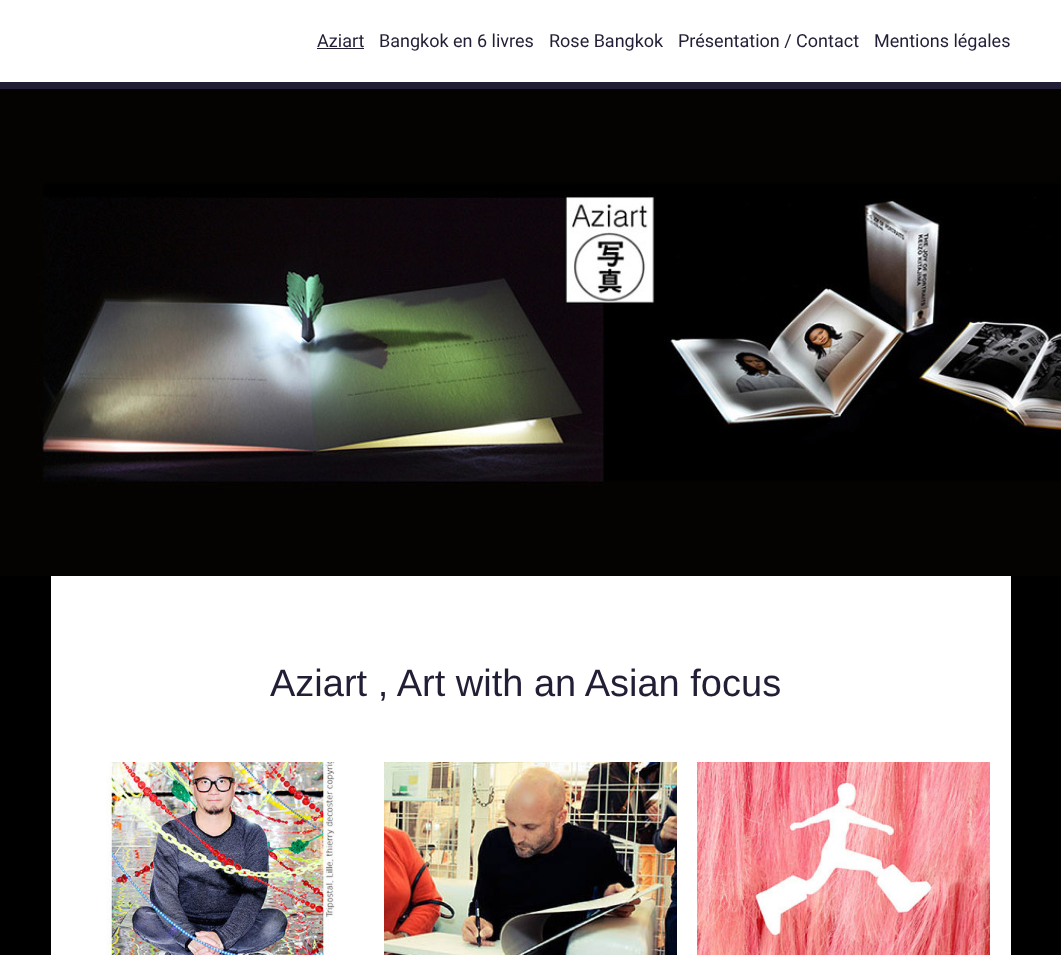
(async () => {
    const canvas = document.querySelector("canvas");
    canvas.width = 1061;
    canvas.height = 955;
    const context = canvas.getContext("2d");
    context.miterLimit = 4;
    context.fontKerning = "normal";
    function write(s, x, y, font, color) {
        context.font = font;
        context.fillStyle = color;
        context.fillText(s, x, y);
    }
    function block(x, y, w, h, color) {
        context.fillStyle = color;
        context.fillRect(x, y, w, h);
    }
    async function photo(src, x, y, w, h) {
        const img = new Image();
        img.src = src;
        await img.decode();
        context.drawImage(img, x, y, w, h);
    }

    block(0, 0, 1061, 955, "rgb(0, 0, 0)");
    block(0, 0, 1061, 82, "rgb(255, 255, 255)");
    block(0, 82, 1061, 7, "rgb(34, 30, 53)");
    write("Aziart", 317, 47, "18px Roboto", "rgb(34, 30, 53)");
    block(317, 48, 47, 1, "rgb(34, 30, 53)");
    write("Bangkok en 6 livres", 379, 47, "18px Roboto", "rgb(34, 30, 53)");
    write("Rose Bangkok", 549, 47, "18px Roboto", "rgb(34, 30, 53)");
    write("Présentation / Contact", 678, 47, "18px Roboto", "rgb(34, 30, 53)");
    write("Mentions légales", 874, 47, "18px Roboto", "rgb(34, 30, 53)");
    await photo("media/1.png", 0, 89, 1061, 487);
    block(51, 576, 960, 379, "rgb(255, 255, 255)");
    write("Aziart , Art with an Asian focus", 270, 696, "38px Liberation Sans", "rgb(34, 30, 53)");
    await photo("media/2.png", 106, 762, 229, 193);
    await photo("media/3.png", 384, 762, 293, 193);
    await photo("media/4.png", 697, 762, 293, 193);
})();
